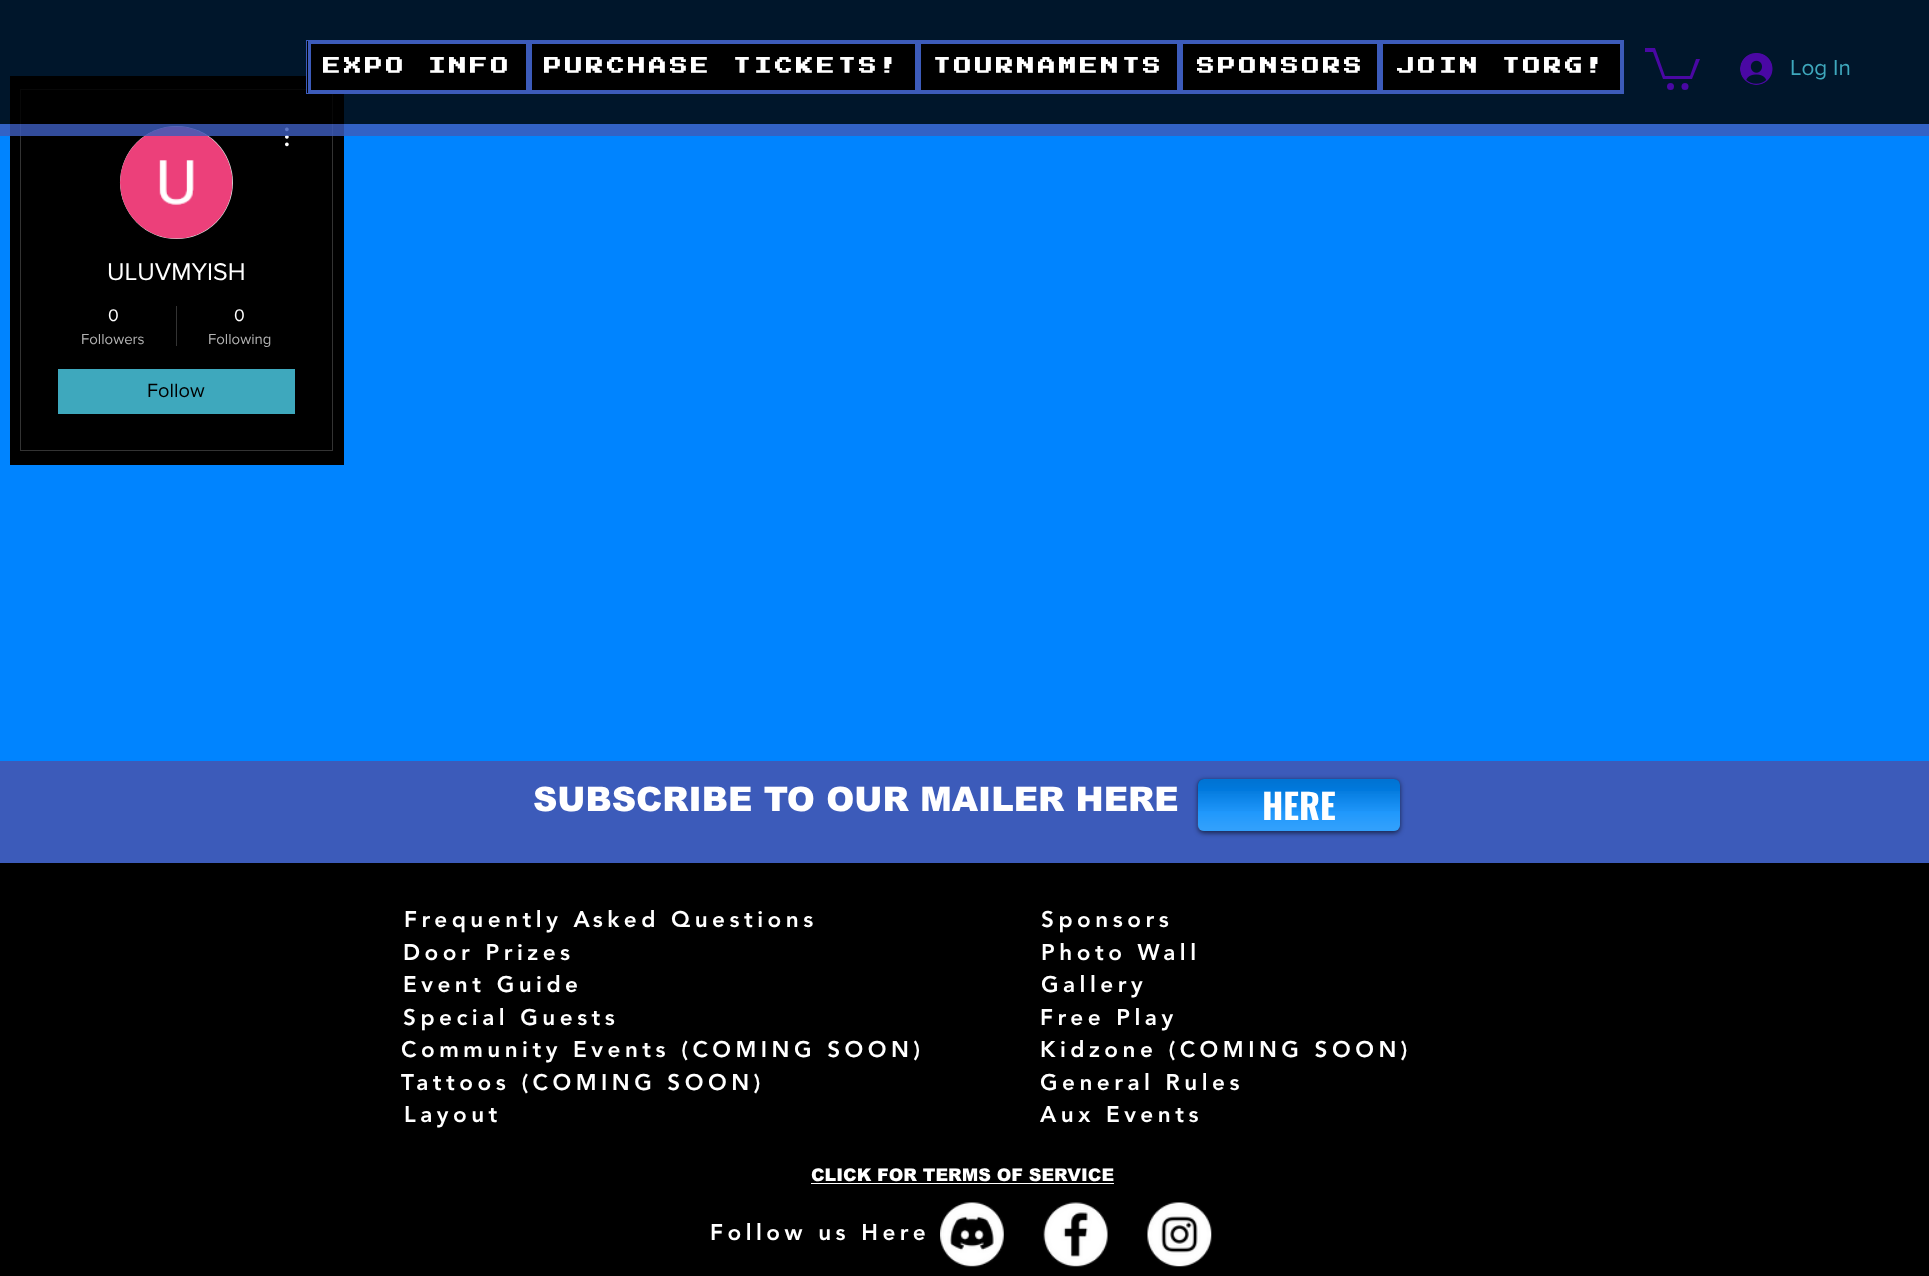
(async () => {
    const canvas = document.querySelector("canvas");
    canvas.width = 1929;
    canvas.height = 1276;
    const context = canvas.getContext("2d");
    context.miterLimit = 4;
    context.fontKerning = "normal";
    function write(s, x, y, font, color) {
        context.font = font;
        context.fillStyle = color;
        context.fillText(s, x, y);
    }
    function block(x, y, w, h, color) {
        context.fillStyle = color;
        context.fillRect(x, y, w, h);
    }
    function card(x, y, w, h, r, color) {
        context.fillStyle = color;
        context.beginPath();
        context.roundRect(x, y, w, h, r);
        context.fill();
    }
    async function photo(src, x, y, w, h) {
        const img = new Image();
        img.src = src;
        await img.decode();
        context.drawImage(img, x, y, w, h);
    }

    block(0, 0, 1929, 1276, "rgb(0, 132, 255)");
    block(10, 76, 334, 389, "rgb(0, 0, 0)");
    context.strokeStyle = "rgb(51, 51, 51)";
    context.strokeRect(20.5, 89.5, 312, 361);
    block(0, 0, 1929, 124, "rgba(0, 0, 0, 0.83)");
    context.fillStyle = "rgb(216, 216, 216)";
    context.beginPath();
    context.arc(176.5, 182.5, 56.5, 0, Math.PI * 2);
    context.fill();
    await photo("media/2.png", 120, 126, 113, 113);
    await photo("media/3.png", 285, 127, 4, 20);
    block(0, 124, 1929, 12, "rgba(60, 91, 186, 0.83)");
    block(307, 41, 1313, 52, "rgb(0, 0, 0)");
    context.strokeStyle = "rgb(60, 91, 186)";
    context.strokeRect(306.5, 40.5, 1317, 53);
    context.lineWidth = 3;
    context.strokeRect(309.5, 42.5, 218, 49);
    context.letterSpacing = "3.5px";
    write("EXPO INFO", 323, 75, "bold 17.5px 'Press Start 2P'", "rgb(255, 255, 255)");
    context.strokeRect(530.5, 42.5, 386, 49);
    write("PURCHASE TICKETS!", 544, 75, "bold 17.5px 'Press Start 2P'", "rgb(255, 255, 255)");
    context.strokeRect(919.5, 42.5, 259, 49);
    write("TOURNAMENTS", 933, 75, "bold 17.5px 'Press Start 2P'", "rgb(255, 255, 255)");
    context.strokeRect(1181.5, 42.5, 197, 49);
    write("SPONSORS", 1197, 75, "bold 17.5px 'Press Start 2P'", "rgb(255, 255, 255)");
    context.strokeRect(1381.5, 42.5, 240, 49);
    write("JOIN TORG!", 1397, 75, "bold 17.5px 'Press Start 2P'", "rgb(255, 255, 255)");
    context.fillStyle = "rgb(74, 8, 164)";
    context.beginPath();
    context.moveTo(1700, 59);
    context.lineTo(1692, 79);
    context.lineTo(1663, 79);
    context.lineTo(1653, 52);
    context.lineTo(1645, 52);
    context.lineTo(1645, 48);
    context.lineTo(1655, 48);
    context.lineTo(1665, 76);
    context.lineTo(1690, 76);
    context.lineTo(1696, 59);
    context.fill();
    context.beginPath();
    context.arc(1685, 86.5, 3.5, 0, Math.PI * 2);
    context.fill();
    context.beginPath();
    context.arc(1670.5, 86.5, 3.5, 0, Math.PI * 2);
    context.fill();
    await photo("media/1.png", 1740, 53, 33, 32);
    context.letterSpacing = "0px";
    write("Log In", 1790, 75, "22.5px 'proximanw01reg'", "rgb(62, 168, 189)");
    write("ULUVMYISH", 107, 280, "25px 'proximanw01reg'", "rgb(255, 255, 255)");
    write("0", 108, 321, "17.5px 'proximanw01reg'", "rgb(255, 255, 255)");
    write("Followers", 81, 344, "15px 'proximanw01reg'", "rgb(179, 179, 179)");
    block(176, 306, 1, 40, "rgb(51, 51, 51)");
    write("0", 234, 321, "17.5px 'proximanw01reg'", "rgb(255, 255, 255)");
    write("Following", 208, 344, "15px 'proximanw01reg'", "rgb(179, 179, 179)");
    block(58, 369, 237, 45, "rgb(62, 168, 189)");
    write("Follow", 147, 397, "20px 'proximanw01reg'", "rgb(0, 0, 0)");
    block(0, 761, 1929, 102, "rgb(60, 91, 186)");
    write("SUBSCRIBE TO OUR MAILER HERE", 533, 811, "900 33.75px arial", "rgb(255, 255, 255)");
    context.fillStyle = "rgba(0, 0, 0, 0.6)";
    context.filter = "blur(2.5px)";
    context.beginPath();
    context.roundRect(1198, 780, 202, 53, 6);
    context.fill();
    context.filter = "none";
    card(1198, 779, 202, 52, 6, "rgb(0, 138, 252)");
    await photo("media/4.png", 1197, 779, 203, 32);
    await photo("media/5.png", 1197, 791, 203, 40);
    write("HERE", 1262, 820, "bold 35px Oswald", "rgb(255, 255, 255)");
    block(0, 863, 1929, 413, "rgb(0, 0, 0)");
    context.letterSpacing = "4.5px";
    write("Frequently Asked Questions", 404, 927, "900 22.5px 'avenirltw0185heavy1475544'", "rgb(255, 255, 255)");
    write("Sponsors", 1041, 927, "900 22.5px 'avenirltw0185heavy1475544'", "rgb(255, 255, 255)");
    write("Door Prizes", 403, 960, "900 22.5px 'avenirltw0185heavy1475544'", "rgb(255, 255, 255)");
    write("Photo Wall", 1041, 960, "900 22.5px 'avenirltw0185heavy1475544'", "rgb(255, 255, 255)");
    write("Event Guide", 403, 992, "900 22.5px 'avenirltw0185heavy1475544'", "rgb(255, 255, 255)");
    write("Gallery", 1041, 992, "900 22.5px 'avenirltw0185heavy1475544'", "rgb(255, 255, 255)");
    write("Special Guests", 403, 1025, "900 22.5px 'avenirltw0185heavy1475544'", "rgb(255, 255, 255)");
    write("Free Play", 1040, 1025, "900 22.5px 'avenirltw0185heavy1475544'", "rgb(255, 255, 255)");
    write("Community Events (COMING SOON)", 401, 1057, "900 22.5px 'avenirltw0185heavy1475544'", "rgb(255, 255, 255)");
    write("Kidzone (COMING SOON)", 1040, 1057, "900 22.5px 'avenirltw0185heavy1475544'", "rgb(255, 255, 255)");
    write("Tattoos (COMING SOON)", 401, 1090, "900 22.5px 'avenirltw0185heavy1475544'", "rgb(255, 255, 255)");
    write("General Rules", 1040, 1090, "900 22.5px 'avenirltw0185heavy1475544'", "rgb(255, 255, 255)");
    write("Layout", 404, 1122, "900 22.5px 'avenirltw0185heavy1475544'", "rgb(255, 255, 255)");
    write("Aux Events", 1040, 1122, "900 22.5px 'avenirltw0185heavy1475544'", "rgb(255, 255, 255)");
    context.letterSpacing = "0px";
    write("CLICK FOR TERMS OF SERVICE", 811, 1181, "900 17.5px arial", "rgb(255, 255, 255)");
    block(811, 1183, 303, 1, "rgb(255, 255, 255)");
    context.letterSpacing = "4.5px";
    write("Follow us Here", 710, 1240, "900 22.5px 'avenirltw0185heavy1475544'", "rgb(255, 255, 255)");
    await photo("media/6.png", 940, 1202, 64, 65);
    await photo("media/7.png", 1043, 1202, 65, 65);
    await photo("media/8.png", 1147, 1202, 65, 65);
})();
